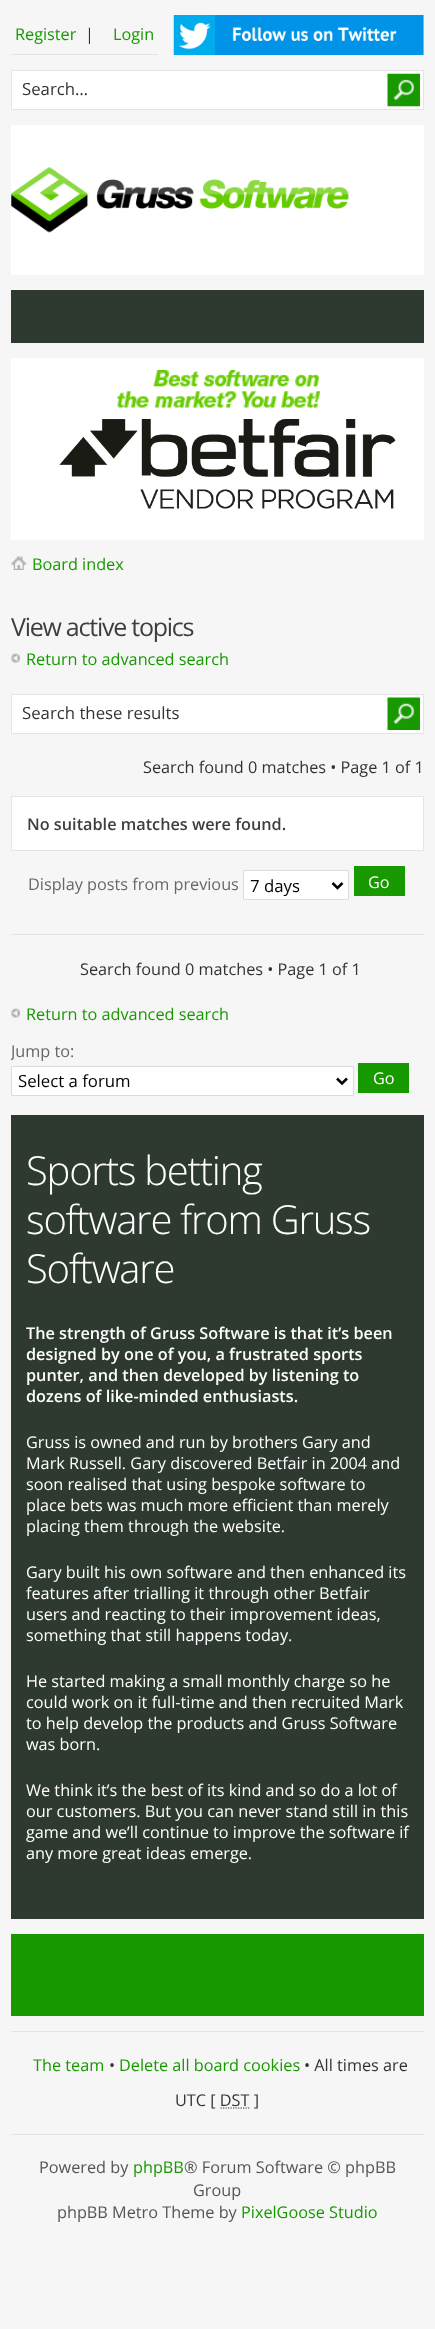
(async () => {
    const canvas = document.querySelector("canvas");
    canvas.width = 435;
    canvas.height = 2329;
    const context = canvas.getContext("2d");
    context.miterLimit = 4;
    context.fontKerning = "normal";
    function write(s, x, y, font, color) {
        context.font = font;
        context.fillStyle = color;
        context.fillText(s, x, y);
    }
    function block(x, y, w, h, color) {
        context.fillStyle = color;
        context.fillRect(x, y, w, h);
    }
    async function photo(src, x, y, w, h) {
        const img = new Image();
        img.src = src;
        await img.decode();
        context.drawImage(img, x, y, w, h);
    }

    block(0, 0, 435, 2329, "rgb(246, 246, 246)");
    block(11, 54, 147, 1, "rgb(228, 228, 228)");
    write("Register", 15, 40, "16.25px Open Sans", "rgb(24, 153, 0)");
    write("|", 85, 40, "16.25px Open Sans", "rgb(51, 51, 51)");
    write("Login", 113, 40, "16.25px Open Sans", "rgb(24, 153, 0)");
    await photo("media/1.png", 173, 15, 251, 40);
    context.fillStyle = "rgb(255, 255, 255)";
    context.beginPath();
    context.rect(11.5, 70.5, 412, 39);
    context.fill();
    context.strokeStyle = "rgb(228, 228, 228)";
    context.stroke();
    write("Search…", 22, 95, "16.75px Open Sans", "rgb(51, 51, 51)");
    await photo("media/2.png", 387, 73, 33, 34);
    block(11, 125, 413, 150, "rgb(255, 255, 255)");
    await photo("media/3.png", 11, 167, 338, 66);
    block(11, 290, 413, 53, "rgb(46, 57, 47)");
    block(11, 358, 413, 182, "rgb(255, 255, 255)");
    await photo("media/4.png", 116, 370, 204, 38);
    await photo("media/5.png", 59, 419, 337, 90);
    await photo("media/6.png", 11, 556, 16, 14);
    write("Board index", 32, 570, "16.25px Open Sans", "rgb(24, 153, 0)");
    context.letterSpacing = "-1.25px";
    write("View active topics", 11, 636, "25px Open Sans", "rgb(62, 62, 62)");
    await photo("media/7.png", 11, 653, 9, 10);
    context.letterSpacing = "0px";
    write("Return to advanced search", 26, 665, "16.25px Open Sans", "rgb(24, 153, 0)");
    context.fillStyle = "rgb(255, 255, 255)";
    context.beginPath();
    context.rect(11.5, 694.5, 412, 39);
    context.fill();
    context.stroke();
    write("Search these results", 22, 719, "16.75px Open Sans", "rgb(51, 51, 51)");
    await photo("media/8.png", 387, 697, 33, 33);
    write("Search found 0 matches • Page 1 of 1", 143, 773, "16.25px Open Sans", "rgb(51, 51, 51)");
    context.fillStyle = "rgb(255, 255, 255)";
    context.beginPath();
    context.rect(11.5, 796.5, 412, 54);
    context.fill();
    context.stroke();
    write("No suitable matches were found.", 27, 830, "600 16.25px Open Sans", "rgb(62, 62, 62)");
    write("Display posts from previous", 28, 890, "16.25px Open Sans", "rgb(103, 103, 103)");
    context.fillStyle = "rgb(255, 255, 255)";
    context.beginPath();
    context.rect(243.5, 870.5, 105, 29);
    context.fill();
    context.strokeStyle = "rgb(220, 220, 220)";
    context.stroke();
    context.beginPath();
    context.moveTo(332.5, 883);
    context.lineTo(337.5, 888);
    context.lineTo(342.5, 883);
    context.strokeStyle = "rgb(0, 0, 0)";
    context.lineWidth = 2.5;
    context.stroke();
    write("7 days", 250, 892, "16.75px Open Sans", "rgb(0, 0, 0)");
    block(354, 866, 51, 30, "rgb(24, 153, 0)");
    write("Go", 368, 888, "16.25px Open Sans", "rgb(255, 255, 255)");
    block(11, 934, 413, 1, "rgb(228, 228, 228)");
    write("Search found 0 matches • Page 1 of 1", 80, 975, "16.25px Open Sans", "rgb(51, 51, 51)");
    await photo("media/7.png", 11, 1008, 9, 10);
    write("Return to advanced search", 26, 1020, "16.25px Open Sans", "rgb(24, 153, 0)");
    context.save();
    context.beginPath();
    context.rect(11, 590, 413, 525);
    context.clip();
    write("Jump to:", 11, 1057, "16.25px Open Sans", "rgb(103, 103, 103)");
    context.restore();
    context.fillStyle = "rgb(255, 255, 255)";
    context.beginPath();
    context.rect(11.5, 1066.5, 342, 29);
    context.fill();
    context.strokeStyle = "rgb(220, 220, 220)";
    context.lineWidth = 1;
    context.stroke();
    context.beginPath();
    context.moveTo(337, 1078.5);
    context.lineTo(342, 1083.5);
    context.lineTo(347, 1078.5);
    context.strokeStyle = "rgb(0, 0, 0)";
    context.lineWidth = 2.5;
    context.stroke();
    write("Select a forum", 18, 1087, "16.75px Open Sans", "rgb(0, 0, 0)");
    block(358, 1063, 51, 30, "rgb(24, 153, 0)");
    write("Go", 373, 1084, "16.25px Open Sans", "rgb(255, 255, 255)");
    block(11, 1115, 413, 804, "rgb(46, 57, 47)");
    context.letterSpacing = "-1.25px";
    write("Sports betting", 26, 1185, "300 40px Open Sans", "rgb(255, 255, 255)");
    write("software from Gruss", 26, 1234, "300 40px Open Sans", "rgb(255, 255, 255)");
    write("Software", 26, 1283, "300 40px Open Sans", "rgb(255, 255, 255)");
    context.letterSpacing = "0px";
    write("The strength of Gruss Software is that it’s been", 26, 1339, "600 16.25px Open Sans", "rgb(255, 255, 255)");
    write("designed by one of you, a frustrated sports", 26, 1360, "600 16.25px Open Sans", "rgb(255, 255, 255)");
    write("punter, and then developed by listening to", 26, 1381, "600 16.25px Open Sans", "rgb(255, 255, 255)");
    write("dozens of like-minded enthusiasts.", 26, 1402, "600 16.25px Open Sans", "rgb(255, 255, 255)");
    write("Gruss is owned and run by brothers Gary and", 26, 1448, "16.25px Open Sans", "rgb(255, 255, 255)");
    write("Mark Russell. Gary discovered Betfair in 2004 and", 26, 1469, "16.25px Open Sans", "rgb(255, 255, 255)");
    write("soon realised that using bespoke software to", 26, 1490, "16.25px Open Sans", "rgb(255, 255, 255)");
    write("place bets was much more efficient than merely", 26, 1511, "16.25px Open Sans", "rgb(255, 255, 255)");
    write("placing them through the website.", 26, 1532, "16.25px Open Sans", "rgb(255, 255, 255)");
    write("Gary built his own software and then enhanced its", 26, 1578, "16.25px Open Sans", "rgb(255, 255, 255)");
    write("features after trialling it through other Betfair", 26, 1599, "16.25px Open Sans", "rgb(255, 255, 255)");
    write("users and reacting to their improvement ideas,", 26, 1620, "16.25px Open Sans", "rgb(255, 255, 255)");
    write("something that still happens today.", 26, 1641, "16.25px Open Sans", "rgb(255, 255, 255)");
    write("He started making a small monthly charge so he", 26, 1687, "16.25px Open Sans", "rgb(255, 255, 255)");
    write("could work on it full-time and then recruited Mark", 26, 1708, "16.25px Open Sans", "rgb(255, 255, 255)");
    write("to help develop the products and Gruss Software", 26, 1729, "16.25px Open Sans", "rgb(255, 255, 255)");
    write("was born.", 26, 1750, "16.25px Open Sans", "rgb(255, 255, 255)");
    write("We think it’s the best of its kind and so do a lot of", 26, 1796, "16.25px Open Sans", "rgb(255, 255, 255)");
    write("our customers. But you can never stand still in this", 26, 1817, "16.25px Open Sans", "rgb(255, 255, 255)");
    write("game and we’ll continue to improve the software if", 26, 1838, "16.25px Open Sans", "rgb(255, 255, 255)");
    write("any more great ideas emerge.", 26, 1859, "16.25px Open Sans", "rgb(255, 255, 255)");
    block(11, 1934, 413, 82, "rgb(24, 153, 0)");
    block(11, 2031, 413, 1, "rgb(228, 228, 228)");
    block(11, 2134, 413, 1, "rgb(228, 228, 228)");
    write("The team", 33, 2071, "16.25px Open Sans", "rgb(24, 153, 0)");
    write("•", 109, 2071, "16.25px Open Sans", "rgb(51, 51, 51)");
    write("Delete all board cookies", 119, 2071, "16.25px Open Sans", "rgb(24, 153, 0)");
    write("• All times are", 304, 2071, "16.25px Open Sans", "rgb(51, 51, 51)");
    write("UTC [ DST ]", 175, 2106, "16.25px Open Sans", "rgb(51, 51, 51)");
    context.beginPath();
    context.moveTo(220.5, 2108);
    context.lineTo(250, 2108);
    context.strokeStyle = "rgb(51, 51, 51)";
    context.lineWidth = 1.2;
    context.setLineDash([1.25, 1.25]);
    context.stroke();
    write("Powered by", 39, 2173, "16.25px Open Sans", "rgb(85, 85, 85)");
    write("phpBB", 133, 2173, "16.25px Open Sans", "rgb(24, 153, 0)");
    write("® Forum Software © phpBB", 184, 2173, "16.25px Open Sans", "rgb(85, 85, 85)");
    write("Group", 193, 2196, "16.25px Open Sans", "rgb(85, 85, 85)");
    write("phpBB Metro Theme by", 57, 2218, "16.25px Open Sans", "rgb(85, 85, 85)");
    write("PixelGoose Studio", 241, 2218, "16.25px Open Sans", "rgb(24, 153, 0)");
})();
